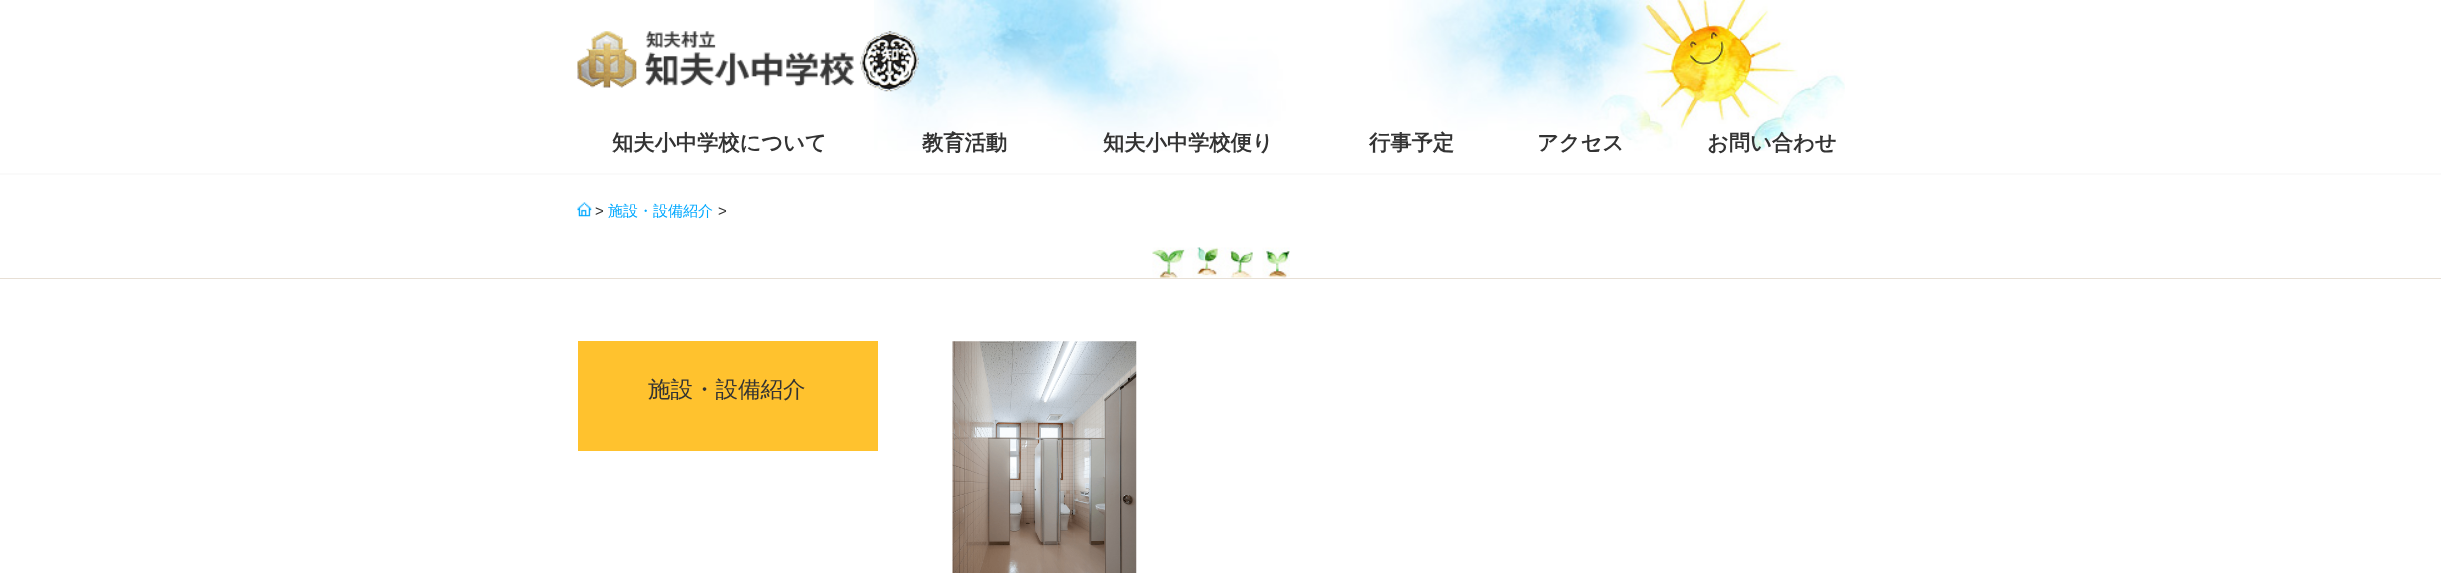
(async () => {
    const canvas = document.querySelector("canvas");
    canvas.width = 2441;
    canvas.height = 573;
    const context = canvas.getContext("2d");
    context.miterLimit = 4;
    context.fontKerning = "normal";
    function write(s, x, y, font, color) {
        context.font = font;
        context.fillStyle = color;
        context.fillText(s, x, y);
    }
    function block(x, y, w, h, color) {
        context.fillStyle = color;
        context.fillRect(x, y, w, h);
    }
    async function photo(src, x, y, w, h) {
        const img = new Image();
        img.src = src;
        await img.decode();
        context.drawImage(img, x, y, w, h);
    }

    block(0, 0, 2441, 573, "rgb(255, 255, 255)");
    await photo("media/1.png", 874, 0, 971, 151);
    await photo("media/2.png", 577, 31, 342, 61);
    write("知夫小中学校について", 612, 150, "bold 21.25px WenQuanYi Zen Hei", "rgb(51, 51, 51)");
    write("教育活動", 922, 150, "bold 21.25px WenQuanYi Zen Hei", "rgb(51, 51, 51)");
    write("知夫小中学校便り", 1103, 150, "bold 21.25px WenQuanYi Zen Hei", "rgb(51, 51, 51)");
    write("行事予定", 1369, 150, "bold 21.25px WenQuanYi Zen Hei", "rgb(51, 51, 51)");
    write("アクセス", 1537, 150, "bold 21.25px WenQuanYi Zen Hei", "rgb(51, 51, 51)");
    write("お問い合わせ", 1707, 150, "bold 21.25px WenQuanYi Zen Hei", "rgb(51, 51, 51)");
    block(0, 173, 2441, 2, "rgb(250, 250, 250)");
    await photo("media/3.png", 577, 202, 15, 15);
    write(">", 595, 216, "15px Liberation Sans", "rgb(51, 51, 51)");
    write("施設・設備紹介", 608, 216, "500 15px WenQuanYi Zen Hei", "rgb(0, 168, 255)");
    write(">", 718, 216, "15px Liberation Sans", "rgb(51, 51, 51)");
    await photo("media/4.png", 1152, 247, 138, 31);
    block(0, 278, 2441, 1, "rgb(231, 223, 213)");
    block(578, 341, 300, 110, "rgb(255, 194, 46)");
    write("施設・設備紹介", 648, 397, "500 22.5px WenQuanYi Zen Hei", "rgb(51, 51, 51)");
    await photo("media/5.png", 952, 341, 185, 232);
})();
